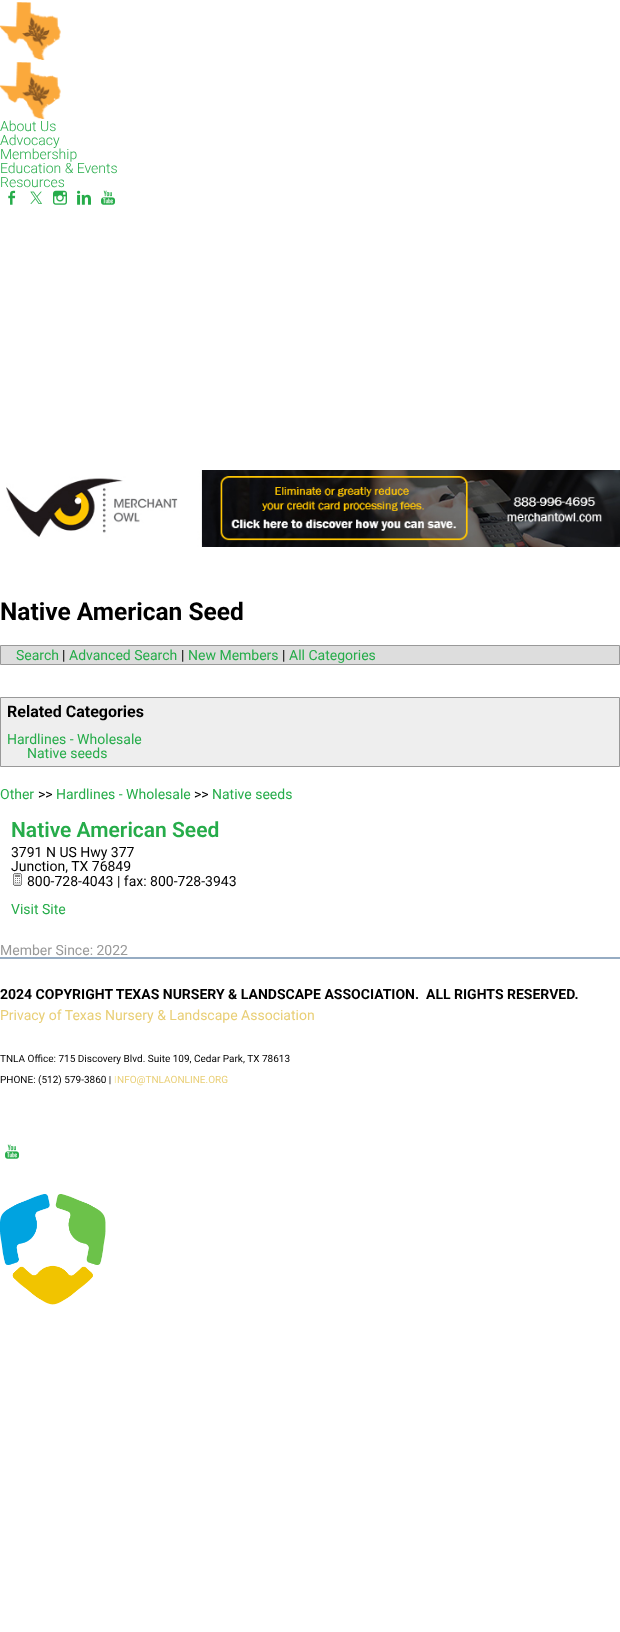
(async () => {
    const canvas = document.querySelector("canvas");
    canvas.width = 620;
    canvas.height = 1632;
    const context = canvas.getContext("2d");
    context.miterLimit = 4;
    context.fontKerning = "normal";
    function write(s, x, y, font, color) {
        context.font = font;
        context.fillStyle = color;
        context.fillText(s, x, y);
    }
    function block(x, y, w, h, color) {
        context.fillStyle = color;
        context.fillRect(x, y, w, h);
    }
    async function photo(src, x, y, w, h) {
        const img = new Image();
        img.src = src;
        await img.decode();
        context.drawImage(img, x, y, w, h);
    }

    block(0, 0, 620, 1632, "rgb(255, 255, 255)");
    await photo("media/1.png", 0, 2, 61, 58);
    await photo("media/2.png", 0, 62, 61, 57);
    write("About Us", 0, 131, "300 14px Roboto", "rgb(38, 172, 74)");
    write("Advocacy", 0, 145, "300 14px Roboto", "rgb(38, 172, 74)");
    write("Membership", 0, 159, "300 14px Roboto", "rgb(38, 172, 74)");
    write("Education & Events", 0, 173, "300 14px Roboto", "rgb(38, 172, 74)");
    write("Resources", 0, 187, "300 14px Roboto", "rgb(38, 172, 74)");
    await photo("media/3.png", 8, 190, 8, 15);
    await photo("media/4.png", 30, 191, 12, 13);
    await photo("media/5.png", 53, 190, 14, 15);
    await photo("media/6.png", 77, 190, 14, 15);
    await photo("media/7.png", 101, 190, 15, 15);
    await photo("media/8.png", 6, 470, 614, 77);
    write("Native American Seed", 0, 620, "bold 24.5px Roboto", "rgb(0, 0, 0)");
    context.fillStyle = "rgb(221, 221, 221)";
    context.beginPath();
    context.rect(0.5, 645.5, 619, 19);
    context.fill();
    context.strokeStyle = "rgb(153, 153, 153)";
    context.stroke();
    write("Search", 16, 660, "14px Roboto", "rgb(38, 172, 74)");
    write("|", 62, 660, "14px Roboto", "rgb(0, 0, 0)");
    write("Advanced Search", 69, 660, "14px Roboto", "rgb(38, 172, 74)");
    write("|", 181, 660, "14px Roboto", "rgb(0, 0, 0)");
    write("New Members", 188, 660, "14px Roboto", "rgb(38, 172, 74)");
    write("|", 282, 660, "14px Roboto", "rgb(0, 0, 0)");
    write("All Categories", 289, 660, "14px Roboto", "rgb(38, 172, 74)");
    context.fillStyle = "rgb(238, 238, 238)";
    context.beginPath();
    context.rect(0.5, 697.5, 619, 69);
    context.fill();
    context.stroke();
    write("Related Categories", 7, 717, "bold 16px Roboto", "rgb(0, 0, 0)");
    write("Hardlines - Wholesale", 7, 744, "14px Roboto", "rgb(38, 172, 74)");
    write("Native seeds", 27, 758, "14px Roboto", "rgb(38, 172, 74)");
    write("Other", 0, 799, "14px Roboto", "rgb(38, 172, 74)");
    write(">>", 38, 799, "14px Roboto", "rgb(0, 0, 0)");
    write("Hardlines - Wholesale", 56, 799, "14px Roboto", "rgb(38, 172, 74)");
    write(">>", 194, 799, "14px Roboto", "rgb(0, 0, 0)");
    write("Native seeds", 212, 799, "14px Roboto", "rgb(38, 172, 74)");
    write("Native American Seed", 11, 837, "600 21px Roboto", "rgb(38, 172, 74)");
    write("3791 N US Hwy 377", 11, 857, "14px Roboto", "rgb(0, 0, 0)");
    write("Junction, TX 76849", 11, 871, "14px Roboto", "rgb(0, 0, 0)");
    await photo("media/9.png", 13, 873, 9, 13);
    write("800-728-4043 | fax: 800-728-3943", 27, 886, "14px Roboto", "rgb(0, 0, 0)");
    write("Visit Site", 11, 914, "14px Roboto", "rgb(38, 172, 74)");
    write("Member Since: 2022", 0, 955, "14px Roboto", "rgb(153, 153, 153)");
    block(0, 957, 620, 2, "rgb(150, 172, 195)");
    write("2024 COPYRIGHT TEXAS NURSERY & LANDSCAPE ASSOCIATION.  ALL RIGHTS RESERVED.", 0, 999, "bold 14px Roboto", "rgb(0, 0, 0)");
    write("Privacy of Texas Nursery & Landscape Association", 0, 1020, "14px Roboto", "rgb(233, 207, 118)");
    write("TNLA Office: 715 Discovery Blvd. Suite 109, Cedar Park, TX 78613", 0, 1062, "10px Roboto", "rgb(0, 0, 0)");
    write("PHONE: (512) 579-3860 |", 0, 1083, "10px Roboto", "rgb(0, 0, 0)");
    write("I", 114, 1083, "10px Roboto", "rgb(248, 234, 169)");
    write("NFO@TNLAONLINE.ORG", 117, 1083, "10px Roboto", "rgb(233, 207, 118)");
    await photo("media/7.png", 5, 1144, 15, 15);
    await photo("media/10.png", 0, 1194, 106, 111);
})();
